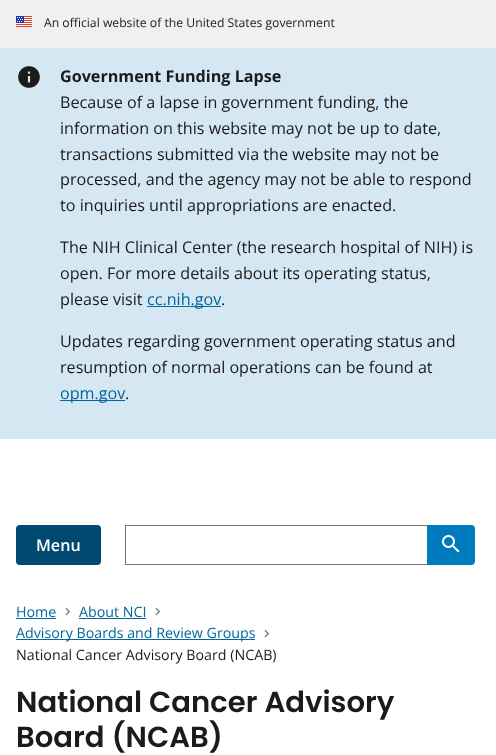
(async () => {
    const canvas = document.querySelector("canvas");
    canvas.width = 496;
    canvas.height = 755;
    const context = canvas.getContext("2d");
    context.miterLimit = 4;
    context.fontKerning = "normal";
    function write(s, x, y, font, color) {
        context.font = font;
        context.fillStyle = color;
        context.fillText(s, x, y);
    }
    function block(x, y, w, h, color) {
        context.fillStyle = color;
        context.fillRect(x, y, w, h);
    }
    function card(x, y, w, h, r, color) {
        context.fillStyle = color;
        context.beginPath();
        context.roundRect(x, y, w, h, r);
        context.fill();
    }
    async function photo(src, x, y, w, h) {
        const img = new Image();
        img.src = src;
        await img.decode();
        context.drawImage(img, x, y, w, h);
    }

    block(0, 0, 496, 755, "rgb(255, 255, 255)");
    block(0, 0, 496, 48, "rgb(240, 240, 240)");
    await photo("media/1.png", 16, 16, 16, 11);
    write("An official website of the United States government", 44, 27, "12.2px Open Sans", "rgb(27, 27, 27)");
    block(0, 48, 496, 391, "rgb(212, 231, 242)");
    await photo("media/2.png", 18, 66, 22, 22);
    write("Government Funding Lapse", 60, 82, "bold 16.15px Open Sans", "rgb(27, 27, 27)");
    write("Because of a lapse in government funding, the", 60, 108, "16.15px Open Sans", "rgb(27, 27, 27)");
    write("information on this website may not be up to date,", 60, 134, "16.15px Open Sans", "rgb(27, 27, 27)");
    write("transactions submitted via the website may not be", 60, 160, "16.15px Open Sans", "rgb(27, 27, 27)");
    write("processed, and the agency may not be able to respond", 60, 185, "16.15px Open Sans", "rgb(27, 27, 27)");
    write("to inquiries until appropriations are enacted.", 60, 211, "16.15px Open Sans", "rgb(27, 27, 27)");
    write("The NIH Clinical Center (the research hospital of NIH) is", 60, 253, "16.15px Open Sans", "rgb(27, 27, 27)");
    write("open. For more details about its operating status,", 60, 279, "16.15px Open Sans", "rgb(27, 27, 27)");
    write("please visit", 60, 305, "16.15px Open Sans", "rgb(27, 27, 27)");
    block(147, 306, 74, 1, "rgb(1, 103, 157)");
    write("cc.nih.gov", 147, 305, "16.15px Open Sans", "rgb(1, 103, 157)");
    write(".", 221, 305, "16.15px Open Sans", "rgb(27, 27, 27)");
    write("Updates regarding government operating status and", 60, 347, "16.15px Open Sans", "rgb(27, 27, 27)");
    write("resumption of normal operations can be found at", 60, 373, "16.15px Open Sans", "rgb(27, 27, 27)");
    block(60, 400, 65, 1, "rgb(1, 103, 157)");
    write("opm.gov", 60, 399, "16.15px Open Sans", "rgb(1, 103, 157)");
    write(".", 125, 399, "16.15px Open Sans", "rgb(27, 27, 27)");
    card(16, 525, 85, 40, 4, "rgb(0, 73, 113)");
    write("Menu", 36, 551, "600 16.15px Open Sans", "rgb(255, 255, 255)");
    block(125, 525, 302, 1, "rgb(117, 117, 117)");
    block(125, 564, 302, 1, "rgb(117, 117, 117)");
    block(125, 525, 1, 40, "rgb(117, 117, 117)");
    context.fillStyle = "rgb(0, 123, 189)";
    context.beginPath();
    context.roundRect(427, 525, 48, 40, [0, 4, 4, 0]);
    context.fill();
    await photo("media/3.png", 442, 535, 18, 18);
    write("Home", 16, 617, "14.25px Open Sans", "rgb(1, 103, 157)");
    block(16, 618, 40, 1, "rgb(1, 103, 157)");
    await photo("media/4.png", 65, 607, 5, 9);
    write("About NCI", 79, 617, "14.25px Open Sans", "rgb(1, 103, 157)");
    block(79, 618, 67, 1, "rgb(1, 103, 157)");
    await photo("media/4.png", 155, 607, 5, 9);
    block(16, 639, 239, 1, "rgb(1, 103, 157)");
    write("Advisory Boards and Review Groups", 16, 638, "14.25px Open Sans", "rgb(1, 103, 157)");
    await photo("media/4.png", 264, 629, 5, 9);
    write("National Cancer Advisory Board (NCAB)", 16, 660, "14.25px Open Sans", "rgb(27, 27, 27)");
    write("National Cancer Advisory", 16, 712, "600 29.1px Poppins", "rgb(27, 27, 27)");
    write("Board (NCAB)", 16, 747, "600 29.1px Poppins", "rgb(27, 27, 27)");
})();
